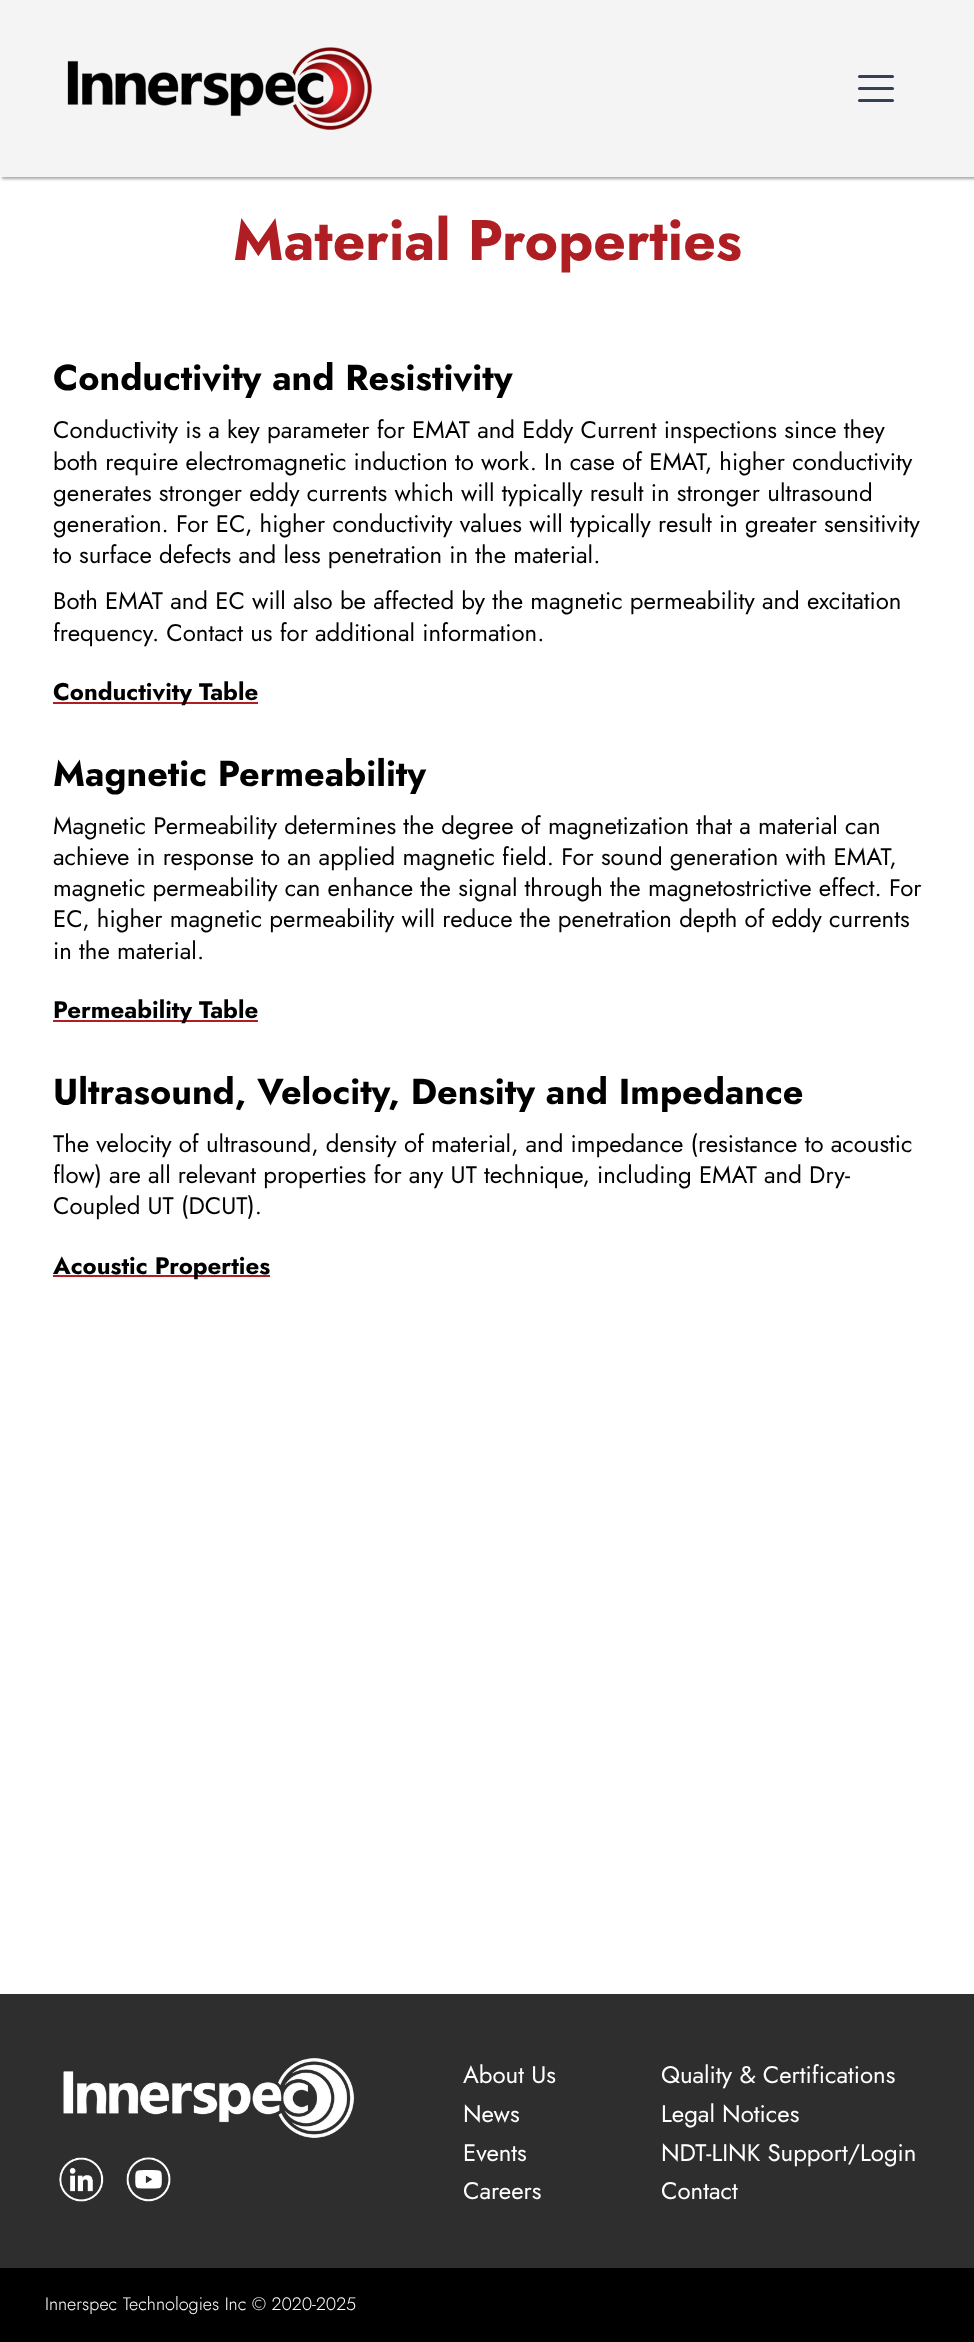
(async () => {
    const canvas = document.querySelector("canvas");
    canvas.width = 974;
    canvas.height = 2342;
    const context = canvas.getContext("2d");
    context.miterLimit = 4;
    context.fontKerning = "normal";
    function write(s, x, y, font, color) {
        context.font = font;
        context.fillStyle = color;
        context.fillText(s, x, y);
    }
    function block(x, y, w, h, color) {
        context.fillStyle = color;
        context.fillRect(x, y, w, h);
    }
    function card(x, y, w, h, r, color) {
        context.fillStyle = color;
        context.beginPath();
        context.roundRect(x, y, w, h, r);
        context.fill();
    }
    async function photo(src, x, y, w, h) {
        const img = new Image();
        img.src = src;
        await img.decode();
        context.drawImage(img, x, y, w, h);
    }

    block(0, 0, 974, 2342, "rgb(255, 255, 255)");
    context.fillStyle = "rgba(0, 0, 0, 0.35)";
    context.filter = "blur(1.5px)";
    context.beginPath();
    context.rect(2, 2, 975, 177);
    context.fill();
    context.filter = "none";
    block(0, 0, 974, 177, "rgb(244, 244, 244)");
    await photo("media/1.png", 67, 47, 305, 83);
    card(858, 75, 36, 3, 1.5, "rgb(52, 64, 84)");
    card(858, 87, 36, 3, 1.5, "rgb(52, 64, 84)");
    card(858, 99, 36, 3, 1.5, "rgb(52, 64, 84)");
    write("Material Properties", 233, 260, "bold 57px Jost", "rgb(174, 30, 34)");
    write("Conductivity and Resistivity", 53, 390, "bold 36px Jost", "rgb(0, 0, 0)");
    write("Conductivity is a key parameter for EMAT and Eddy Current inspections since they", 53, 438, "24px Jost", "rgb(0, 0, 0)");
    write("both require electromagnetic induction to work. In case of EMAT, higher conductivity", 53, 470, "24px Jost", "rgb(0, 0, 0)");
    write("generates stronger eddy currents which will typically result in stronger ultrasound", 53, 501, "24px Jost", "rgb(0, 0, 0)");
    write("generation. For EC, higher conductivity values will typically result in greater sensitivity", 53, 532, "24px Jost", "rgb(0, 0, 0)");
    write("to surface defects and less penetration in the material.", 53, 563, "24px Jost", "rgb(0, 0, 0)");
    write("Both EMAT and EC will also be affected by the magnetic permeability and excitation", 53, 609, "24px Jost", "rgb(0, 0, 0)");
    write("frequency. Contact us for additional information.", 53, 641, "24px Jost", "rgb(0, 0, 0)");
    block(53, 702, 205, 2, "rgb(174, 30, 34)");
    write("Conductivity Table", 53, 700, "bold 24px Jost", "rgb(0, 0, 0)");
    write("Magnetic Permeability", 53, 786, "bold 36px Jost", "rgb(0, 0, 0)");
    write("Magnetic Permeability determines the degree of magnetization that a material can", 53, 834, "24px Jost", "rgb(0, 0, 0)");
    write("achieve in response to an applied magnetic field. For sound generation with EMAT,", 53, 865, "24px Jost", "rgb(0, 0, 0)");
    write("magnetic permeability can enhance the signal through the magnetostrictive effect. For", 53, 896, "24px Jost", "rgb(0, 0, 0)");
    write("EC, higher magnetic permeability will reduce the penetration depth of eddy currents", 53, 927, "24px Jost", "rgb(0, 0, 0)");
    write("in the material.", 53, 959, "24px Jost", "rgb(0, 0, 0)");
    block(53, 1020, 205, 2, "rgb(174, 30, 34)");
    write("Permeability Table", 53, 1018, "bold 24px Jost", "rgb(0, 0, 0)");
    write("Ultrasound, Velocity, Density and Impedance", 53, 1104, "bold 36px Jost", "rgb(0, 0, 0)");
    write("The velocity of ultrasound, density of material, and impedance (resistance to acoustic", 53, 1152, "24px Jost", "rgb(0, 0, 0)");
    write("flow) are all relevant properties for any UT technique, including EMAT and Dry-", 53, 1183, "24px Jost", "rgb(0, 0, 0)");
    write("Coupled UT (DCUT).", 53, 1214, "24px Jost", "rgb(0, 0, 0)");
    block(53, 1275, 217, 2, "rgb(174, 30, 34)");
    write("Acoustic Properties", 53, 1274, "bold 24px Jost", "rgb(0, 0, 0)");
    block(0, 1994, 974, 274, "rgb(46, 46, 46)");
    await photo("media/2.png", 63, 2058, 292, 80);
    await photo("media/3.png", 59, 2157, 45, 45);
    await photo("media/4.png", 126, 2157, 45, 45);
    write("About Us", 463, 2083, "24px Jost", "rgb(255, 255, 255)");
    write("News", 463, 2122, "24px Jost", "rgb(255, 255, 255)");
    write("Events", 463, 2161, "24px Jost", "rgb(255, 255, 255)");
    write("Careers", 463, 2199, "24px Jost", "rgb(255, 255, 255)");
    write("Quality & Certifications", 661, 2083, "24px Jost", "rgb(255, 255, 255)");
    write("Legal Notices", 661, 2122, "24px Jost", "rgb(255, 255, 255)");
    write("NDT-LINK Support/Login", 661, 2161, "24px Jost", "rgb(255, 255, 255)");
    write("Contact", 661, 2199, "24px Jost", "rgb(255, 255, 255)");
    block(0, 2268, 974, 74, "rgb(0, 0, 0)");
    write("Innerspec Technologies Inc © 2020-2025", 45, 2310, "300 18px Jost", "rgb(255, 255, 255)");
})();
